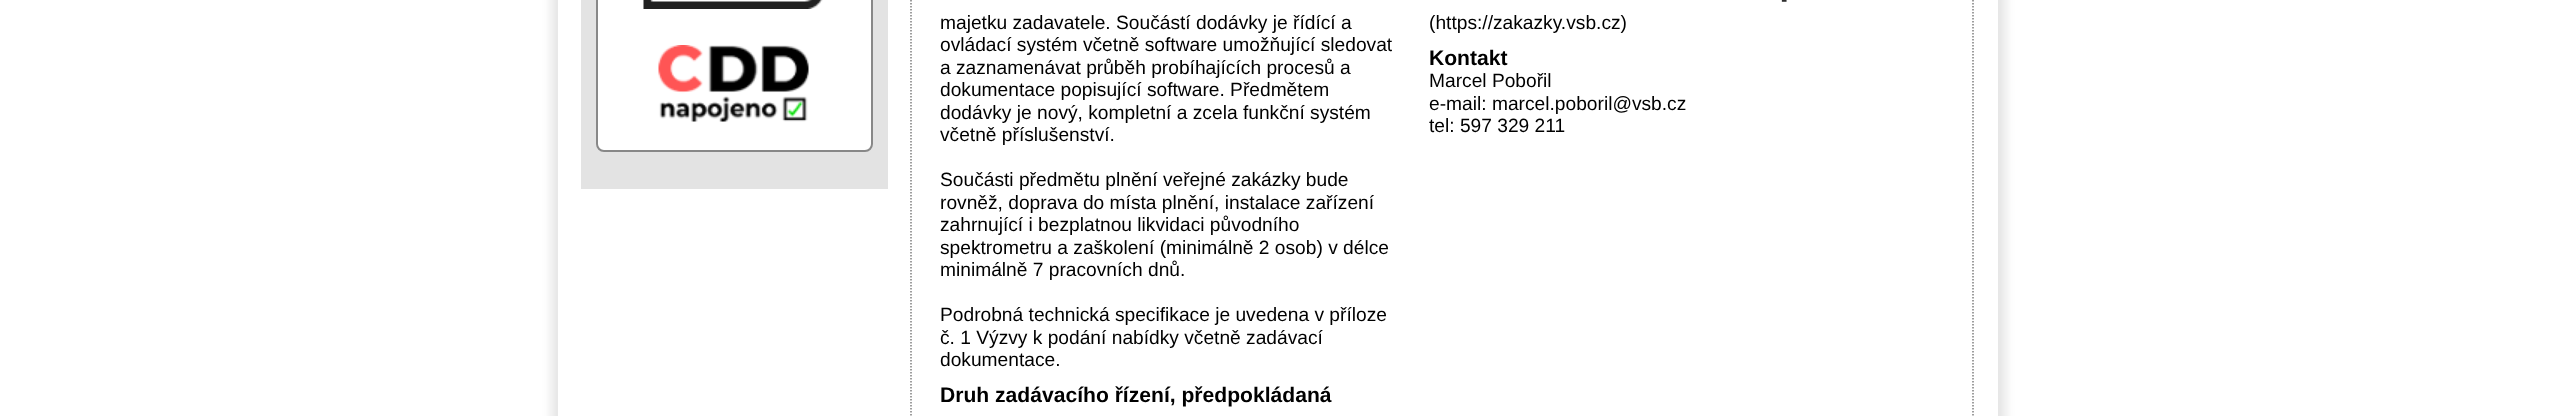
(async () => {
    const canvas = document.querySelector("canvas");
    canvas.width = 2554;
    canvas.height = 416;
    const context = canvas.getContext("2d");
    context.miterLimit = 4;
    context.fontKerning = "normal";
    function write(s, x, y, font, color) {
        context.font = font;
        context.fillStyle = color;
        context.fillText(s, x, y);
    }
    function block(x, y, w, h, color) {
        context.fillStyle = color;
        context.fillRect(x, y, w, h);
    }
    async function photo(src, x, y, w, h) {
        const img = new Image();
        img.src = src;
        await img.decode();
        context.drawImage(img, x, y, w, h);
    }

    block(0, 0, 2554, 416, "rgb(255, 255, 255)");
    context.save();
    context.beginPath();
    context.moveTo(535, 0);
    context.lineTo(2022, 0);
    context.lineTo(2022, 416);
    context.lineTo(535, 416);
    context.closePath();
    context.moveTo(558, -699);
    context.lineTo(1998, -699);
    context.lineTo(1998, 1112);
    context.lineTo(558, 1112);
    context.closePath();
    context.clip("evenodd");
    context.fillStyle = "rgb(230, 230, 230)";
    context.filter = "blur(5px)";
    context.beginPath();
    context.rect(551, -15, 1455, 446);
    context.fill();
    context.filter = "none";
    context.restore();
    block(581, 0, 307, 189, "rgb(227, 227, 227)");
    context.fillStyle = "rgb(255, 255, 255)";
    context.beginPath();
    context.roundRect(597, -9, 275, 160, 7);
    context.fill();
    context.strokeStyle = "rgb(136, 136, 136)";
    context.lineWidth = 2;
    context.stroke();
    await photo("media/1.png", 643, 0, 180, 9);
    await photo("media/2.png", 658, 45, 151, 77);
    context.beginPath();
    context.moveTo(1973, -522);
    context.lineTo(1973, 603);
    context.strokeStyle = "rgb(127, 127, 127)";
    context.lineWidth = 1.5;
    context.setLineDash([1.5, 1.5]);
    context.stroke();
    context.beginPath();
    context.moveTo(911, -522);
    context.lineTo(911, 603);
    context.stroke();
    write("majetku zadavatele. Součástí dodávky je řídící a", 940, 29, "19.2px Liberation Sans", "rgb(0, 0, 0)");
    write("ovládací systém včetně software umožňující sledovat", 940, 51, "19.2px Liberation Sans", "rgb(0, 0, 0)");
    write("a zaznamenávat průběh probíhajících procesů a", 940, 74, "19.2px Liberation Sans", "rgb(0, 0, 0)");
    write("dokumentace popisující software. Předmětem", 940, 96, "19.2px Liberation Sans", "rgb(0, 0, 0)");
    write("dodávky je nový, kompletní a zcela funkční systém", 940, 119, "19.2px Liberation Sans", "rgb(0, 0, 0)");
    write("včetně příslušenství.", 940, 141, "19.2px Liberation Sans", "rgb(0, 0, 0)");
    write("Součásti předmětu plnění veřejné zakázky bude", 940, 186, "19.2px Liberation Sans", "rgb(0, 0, 0)");
    write("rovněž, doprava do místa plnění, instalace zařízení", 940, 209, "19.2px Liberation Sans", "rgb(0, 0, 0)");
    write("zahrnující i bezplatnou likvidaci původního", 940, 231, "19.2px Liberation Sans", "rgb(0, 0, 0)");
    write("spektrometru a zaškolení (minimálně 2 osob) v délce", 940, 254, "19.2px Liberation Sans", "rgb(0, 0, 0)");
    write("minimálně 7 pracovních dnů.", 940, 276, "19.2px Liberation Sans", "rgb(0, 0, 0)");
    write("Podrobná technická specifikace je uvedena v příloze", 940, 321, "19.2px Liberation Sans", "rgb(0, 0, 0)");
    write("č. 1 Výzvy k podání nabídky včetně zadávací", 940, 344, "19.2px Liberation Sans", "rgb(0, 0, 0)");
    write("dokumentace.", 940, 366, "19.2px Liberation Sans", "rgb(0, 0, 0)");
    write("Druh zadávacího řízení, předpokládaná", 940, 402, "bold 21.1px Liberation Sans", "rgb(0, 0, 0)");
    write("-", 1781, 6, "19.2px Liberation Sans", "rgb(0, 0, 0)");
    write("(https://zakazky.vsb.cz)", 1429, 29, "19.2px Liberation Sans", "rgb(0, 0, 0)");
    write("Kontakt", 1429, 65, "bold 21.1px Liberation Sans", "rgb(0, 0, 0)");
    write("Marcel Pobořil", 1429, 87, "19.2px Liberation Sans", "rgb(0, 0, 0)");
    write("e-mail: marcel.poboril@vsb.cz", 1429, 110, "19.2px Liberation Sans", "rgb(0, 0, 0)");
    write("tel: 597 329 211", 1429, 132, "19.2px Liberation Sans", "rgb(0, 0, 0)");
})();
